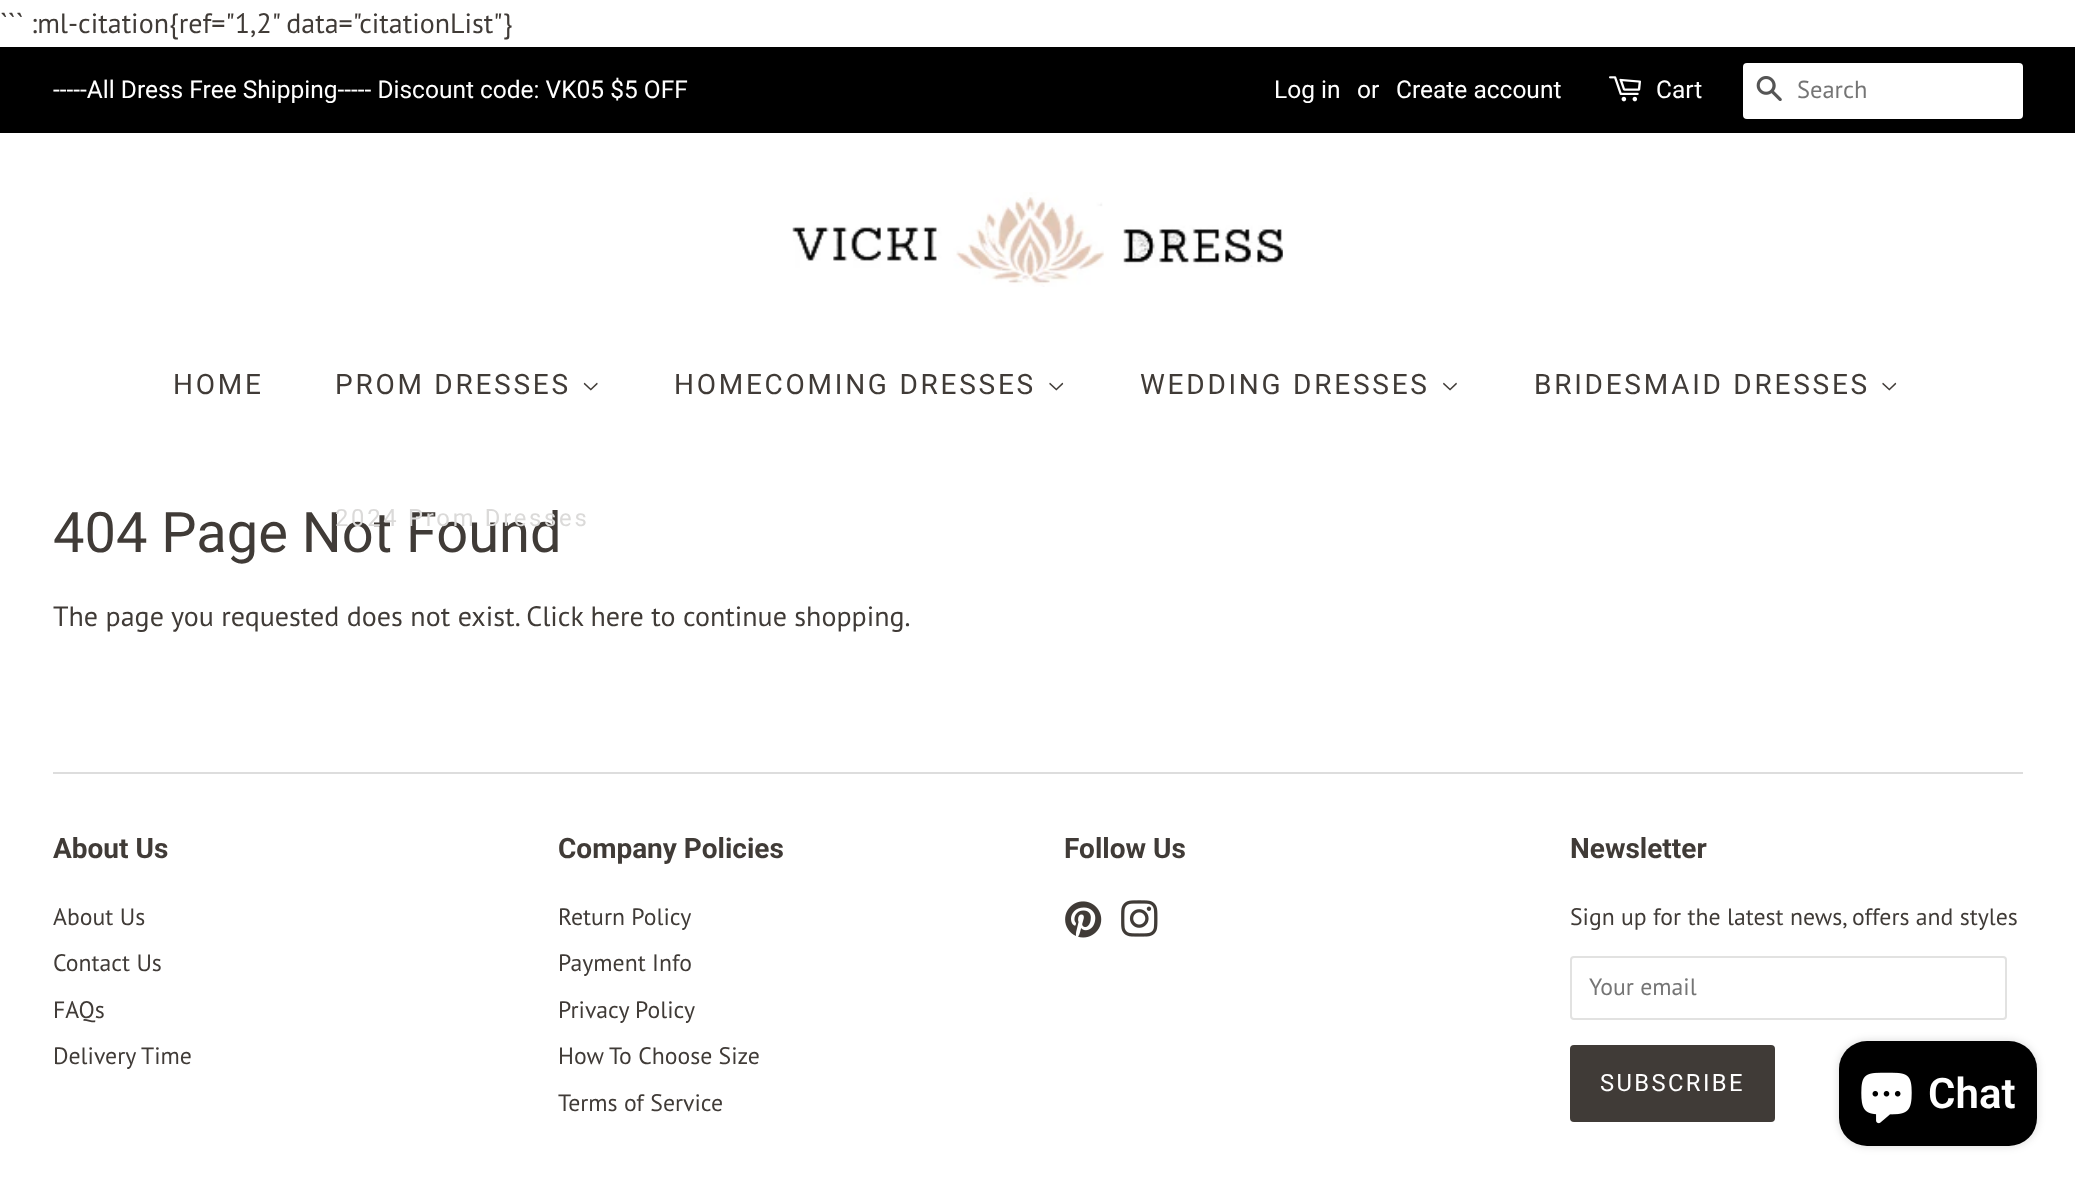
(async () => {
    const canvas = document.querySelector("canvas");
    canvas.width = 2075;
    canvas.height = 1182;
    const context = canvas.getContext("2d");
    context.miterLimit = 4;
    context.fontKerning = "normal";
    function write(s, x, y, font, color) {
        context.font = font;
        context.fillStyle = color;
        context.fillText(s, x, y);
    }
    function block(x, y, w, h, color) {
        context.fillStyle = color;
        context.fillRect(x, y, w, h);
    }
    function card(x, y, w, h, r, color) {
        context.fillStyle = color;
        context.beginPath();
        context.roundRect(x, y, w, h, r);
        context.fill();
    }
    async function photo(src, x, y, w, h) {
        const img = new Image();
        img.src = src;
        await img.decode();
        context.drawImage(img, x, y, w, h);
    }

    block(0, 0, 2075, 1182, "rgb(255, 255, 255)");
    write("``` ‌:ml-citation{ref=\"1,2\" data=\"citationList\"}", 0, 33, "28px PT Sans", "rgb(64, 59, 55)");
    block(0, 47, 2075, 86, "rgb(0, 0, 0)");
    write("-----All Dress Free Shipping----- Discount code: VK05 $5 OFF", 53, 98, "24.5px Roboto", "rgb(255, 255, 255)");
    write("Log in", 1274, 98, "24.5px Roboto", "rgb(255, 255, 255)");
    write("or", 1357, 98, "24.5px Roboto", "rgb(255, 255, 255)");
    write("Create account", 1396, 98, "24.5px Roboto", "rgb(255, 255, 255)");
    await photo("media/1.png", 1609, 76, 32, 26);
    write("Cart", 1656, 98, "24.5px Roboto", "rgb(255, 255, 255)");
    card(1743, 63, 280, 56, 4, "rgb(255, 255, 255)");
    await photo("media/2.png", 1756, 76, 26, 25);
    write("Search", 1797, 98, "24.5px PT Sans", "rgb(117, 117, 117)");
    await photo("media/3.png", 792, 192, 491, 95);
    context.letterSpacing = "2.75px";
    write("HOME", 173, 394, "28px Roboto", "rgb(64, 59, 55)");
    write("PROM DRESSES", 335, 394, "28px Roboto", "rgb(64, 59, 55)");
    await photo("media/4.png", 583, 382, 15, 9);
    context.letterSpacing = "0px";
    write("404 Page Not Found", 53, 552, "56px Roboto", "rgb(64, 59, 55)");
    context.letterSpacing = "2.75px";
    write("2024 Prom Dresses", 335, 526, "23.75px Roboto", "rgb(219, 218, 217)");
    write("HOMECOMING DRESSES", 674, 394, "28px Roboto", "rgb(64, 59, 55)");
    await photo("media/5.png", 1049, 382, 15, 9);
    write("WEDDING DRESSES", 1140, 394, "28px Roboto", "rgb(64, 59, 55)");
    await photo("media/6.png", 1443, 382, 14, 9);
    write("BRIDESMAID DRESSES", 1534, 394, "28px Roboto", "rgb(64, 59, 55)");
    await photo("media/5.png", 1882, 382, 15, 9);
    context.letterSpacing = "0px";
    write("The page you requested does not exist. Click here to continue shopping.", 53, 626, "28px PT Sans", "rgb(64, 59, 55)");
    block(53, 772, 1970, 2, "rgb(221, 221, 221)");
    write("About Us", 53, 858, "bold 28px Roboto", "rgb(64, 59, 55)");
    write("About Us", 53, 925, "23.75px PT Sans", "rgb(64, 59, 55)");
    write("Contact Us", 53, 971, "23.75px PT Sans", "rgb(64, 59, 55)");
    write("FAQs", 53, 1018, "23.75px PT Sans", "rgb(64, 59, 55)");
    write("Delivery Time", 53, 1064, "23.75px PT Sans", "rgb(64, 59, 55)");
    write("Company Policies", 558, 858, "bold 28px Roboto", "rgb(64, 59, 55)");
    write("Return Policy", 558, 925, "23.75px PT Sans", "rgb(64, 59, 55)");
    write("Payment Info", 558, 971, "23.75px PT Sans", "rgb(64, 59, 55)");
    write("Privacy Policy", 558, 1018, "23.75px PT Sans", "rgb(64, 59, 55)");
    write("How To Choose Size", 558, 1064, "23.75px PT Sans", "rgb(64, 59, 55)");
    write("Terms of Service", 558, 1111, "23.75px PT Sans", "rgb(64, 59, 55)");
    write("Follow Us", 1064, 858, "bold 28px Roboto", "rgb(64, 59, 55)");
    await photo("media/7.png", 1065, 901, 37, 37);
    await photo("media/8.png", 1121, 900, 37, 37);
    write("Newsletter", 1570, 858, "bold 28px Roboto", "rgb(64, 59, 55)");
    write("Sign up for the latest news, offers and styles", 1570, 925, "23.75px PT Sans", "rgb(64, 59, 55)");
    context.beginPath();
    context.roundRect(1571, 957, 435, 62, 3);
    context.strokeStyle = "rgb(226, 226, 225)";
    context.lineWidth = 2;
    context.stroke();
    write("Your email", 1589, 995, "23.75px PT Sans", "rgb(117, 117, 117)");
    card(1570, 1045, 205, 77, 4, "rgb(64, 59, 55)");
    context.letterSpacing = "2.4px";
    write("SUBSCRIBE", 1600, 1091, "23.75px Roboto", "rgb(255, 255, 255)");
    context.fillStyle = "rgba(0, 0, 0, 0.15)";
    context.filter = "blur(4.5px)";
    context.beginPath();
    context.roundRect(1839, 1041, 198, 105, 28);
    context.fill();
    context.filter = "none";
    card(1839, 1041, 198, 105, 28, "rgb(0, 0, 0)");
    await photo("media/9.png", 1861, 1072, 51, 52);
    context.letterSpacing = "0px";
    write("Chat", 1928, 1108, "600 42px Roboto", "rgb(255, 255, 255)");
})();
